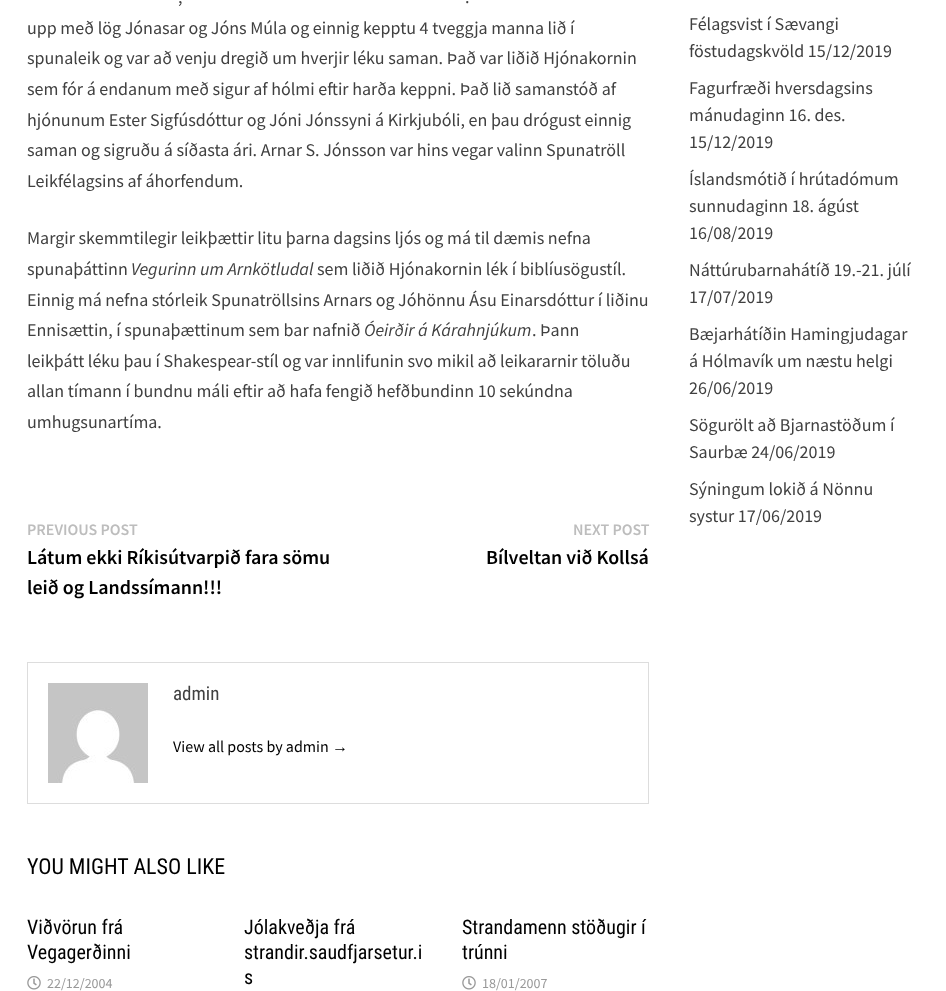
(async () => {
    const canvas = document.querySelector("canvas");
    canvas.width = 946;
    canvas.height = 991;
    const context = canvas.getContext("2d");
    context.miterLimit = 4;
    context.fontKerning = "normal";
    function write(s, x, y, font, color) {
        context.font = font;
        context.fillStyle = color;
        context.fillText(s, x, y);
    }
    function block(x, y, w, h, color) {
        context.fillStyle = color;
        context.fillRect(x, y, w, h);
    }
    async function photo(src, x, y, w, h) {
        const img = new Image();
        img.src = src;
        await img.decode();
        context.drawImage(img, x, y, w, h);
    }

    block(0, 0, 946, 991, "rgb(255, 255, 255)");
    write(",", 178, 3, "18px Source Sans Pro", "rgb(64, 64, 64)");
    write(".", 465, 3, "18px Source Sans Pro", "rgb(64, 64, 64)");
    write("upp með lög Jónasar og Jóns Múla og einnig kepptu 4 tveggja manna lið í", 27, 34, "18px Source Sans Pro", "rgb(64, 64, 64)");
    write("spunaleik og var að venju dregið um hverjir léku saman. Það var liðið Hjónakornin", 27, 64, "18px Source Sans Pro", "rgb(64, 64, 64)");
    write("sem fór á endanum með sigur af hólmi eftir harða keppni. Það lið samanstóð af", 27, 95, "18px Source Sans Pro", "rgb(64, 64, 64)");
    write("hjónunum Ester Sigfúsdóttur og Jóni Jónssyni á Kirkjubóli, en þau drógust einnig", 27, 126, "18px Source Sans Pro", "rgb(64, 64, 64)");
    write("saman og sigruðu á síðasta ári. Arnar S. Jónsson var hins vegar valinn Spunatröll", 27, 156, "18px Source Sans Pro", "rgb(64, 64, 64)");
    write("Leikfélagsins af áhorfendum.", 27, 187, "18px Source Sans Pro", "rgb(64, 64, 64)");
    write("Margir skemmtilegir leikþættir litu þarna dagsins ljós og má til dæmis nefna", 27, 244, "18px Source Sans Pro", "rgb(64, 64, 64)");
    write("spunaþáttinn", 27, 275, "18px Source Sans Pro", "rgb(64, 64, 64)");
    write("Vegurinn um Arnkötludal", 131, 275, "italic 18px Source Sans Pro", "rgb(64, 64, 64)");
    write("sem liðið Hjónakornin lék í biblíusögustíl.", 317, 275, "18px Source Sans Pro", "rgb(64, 64, 64)");
    write("Einnig má nefna stórleik Spunatröllsins Arnars og Jóhönnu Ásu Einarsdóttur í liðinu", 27, 306, "18px Source Sans Pro", "rgb(64, 64, 64)");
    write("Ennisættin, í spunaþættinum sem bar nafnið", 27, 336, "18px Source Sans Pro", "rgb(64, 64, 64)");
    write("Óeirðir á Kárahnjúkum", 364, 336, "italic 18px Source Sans Pro", "rgb(64, 64, 64)");
    write(". Þann", 532, 336, "18px Source Sans Pro", "rgb(64, 64, 64)");
    write("leikþátt léku þau í Shakespear-stíl og var innlifunin svo mikil að leikararnir töluðu", 27, 367, "18px Source Sans Pro", "rgb(64, 64, 64)");
    write("allan tímann í bundnu máli eftir að hafa fengið hefðbundinn 10 sekúndna", 27, 397, "18px Source Sans Pro", "rgb(64, 64, 64)");
    write("umhugsunartíma.", 27, 428, "18px Source Sans Pro", "rgb(64, 64, 64)");
    write("PREVIOUS POST", 27, 535, "600 16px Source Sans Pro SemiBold", "rgb(189, 189, 189)");
    write("Látum ekki Ríkisútvarpið fara sömu", 27, 564, "600 20px Source Sans Pro SemiBold", "rgb(0, 0, 0)");
    write("leið og Landssímann!!!", 27, 594, "600 20px Source Sans Pro SemiBold", "rgb(0, 0, 0)");
    write("NEXT POST", 573, 535, "600 16px Source Sans Pro SemiBold", "rgb(189, 189, 189)");
    write("Bílveltan við Kollsá", 486, 564, "600 20px Source Sans Pro SemiBold", "rgb(0, 0, 0)");
    context.strokeStyle = "rgb(221, 221, 221)";
    context.strokeRect(27.5, 662.5, 621, 141);
    await photo("media/1.png", 48, 683, 100, 100);
    write("admin", 173, 700, "19px Roboto Condensed", "rgb(64, 64, 64)");
    write("View all posts by admin", 173, 752, "16px Source Sans Pro", "rgb(0, 0, 0)");
    write("→", 332, 752, "16px Liberation Sans", "rgb(0, 0, 0)");
    write("YOU MIGHT ALSO LIKE", 27, 874, "22px Roboto Condensed", "rgb(0, 0, 0)");
    write("Viðvörun frá", 27, 934, "20px Roboto Condensed", "rgb(0, 0, 0)");
    write("Vegagerðinni", 27, 959, "20px Roboto Condensed", "rgb(0, 0, 0)");
    await photo("media/2.png", 27, 976, 14, 14);
    write("22/12/2004", 47, 988, "14px Source Sans Pro", "rgb(153, 153, 153)");
    write("Jólakveðja frá", 244, 934, "20px Roboto Condensed", "rgb(0, 0, 0)");
    write("strandir.saudfjarsetur.i", 244, 959, "20px Roboto Condensed", "rgb(0, 0, 0)");
    write("s", 244, 984, "20px Roboto Condensed", "rgb(0, 0, 0)");
    write("Strandamenn stöðugir í", 462, 934, "20px Roboto Condensed", "rgb(0, 0, 0)");
    write("trúnni", 462, 959, "20px Roboto Condensed", "rgb(0, 0, 0)");
    await photo("media/2.png", 462, 976, 14, 14);
    write("18/01/2007", 482, 988, "14px Source Sans Pro", "rgb(153, 153, 153)");
    write("Félagsvist í Sævangi", 689, 30, "18px Source Sans Pro", "rgb(64, 64, 64)");
    write("föstudagskvöld 15/12/2019", 689, 57, "18px Source Sans Pro", "rgb(64, 64, 64)");
    write("Fagurfræði hversdagsins", 689, 94, "18px Source Sans Pro", "rgb(64, 64, 64)");
    write("mánudaginn 16. des.", 689, 121, "18px Source Sans Pro", "rgb(64, 64, 64)");
    write("15/12/2019", 689, 148, "18px Source Sans Pro", "rgb(64, 64, 64)");
    write("Íslandsmótið í hrútadómum", 689, 185, "18px Source Sans Pro", "rgb(64, 64, 64)");
    write("sunnudaginn 18. ágúst", 689, 212, "18px Source Sans Pro", "rgb(64, 64, 64)");
    write("16/08/2019", 689, 239, "18px Source Sans Pro", "rgb(64, 64, 64)");
    write("Náttúrubarnahátíð 19.-21. júlí", 689, 276, "18px Source Sans Pro", "rgb(64, 64, 64)");
    write("17/07/2019", 689, 303, "18px Source Sans Pro", "rgb(64, 64, 64)");
    write("Bæjarhátíðin Hamingjudagar", 689, 340, "18px Source Sans Pro", "rgb(64, 64, 64)");
    write("á Hólmavík um næstu helgi", 689, 367, "18px Source Sans Pro", "rgb(64, 64, 64)");
    write("26/06/2019", 689, 394, "18px Source Sans Pro", "rgb(64, 64, 64)");
    write("Sögurölt að Bjarnastöðum í", 689, 431, "18px Source Sans Pro", "rgb(64, 64, 64)");
    write("Saurbæ 24/06/2019", 689, 458, "18px Source Sans Pro", "rgb(64, 64, 64)");
    write("Sýningum lokið á Nönnu", 689, 495, "18px Source Sans Pro", "rgb(64, 64, 64)");
    write("systur 17/06/2019", 689, 522, "18px Source Sans Pro", "rgb(64, 64, 64)");
})();
